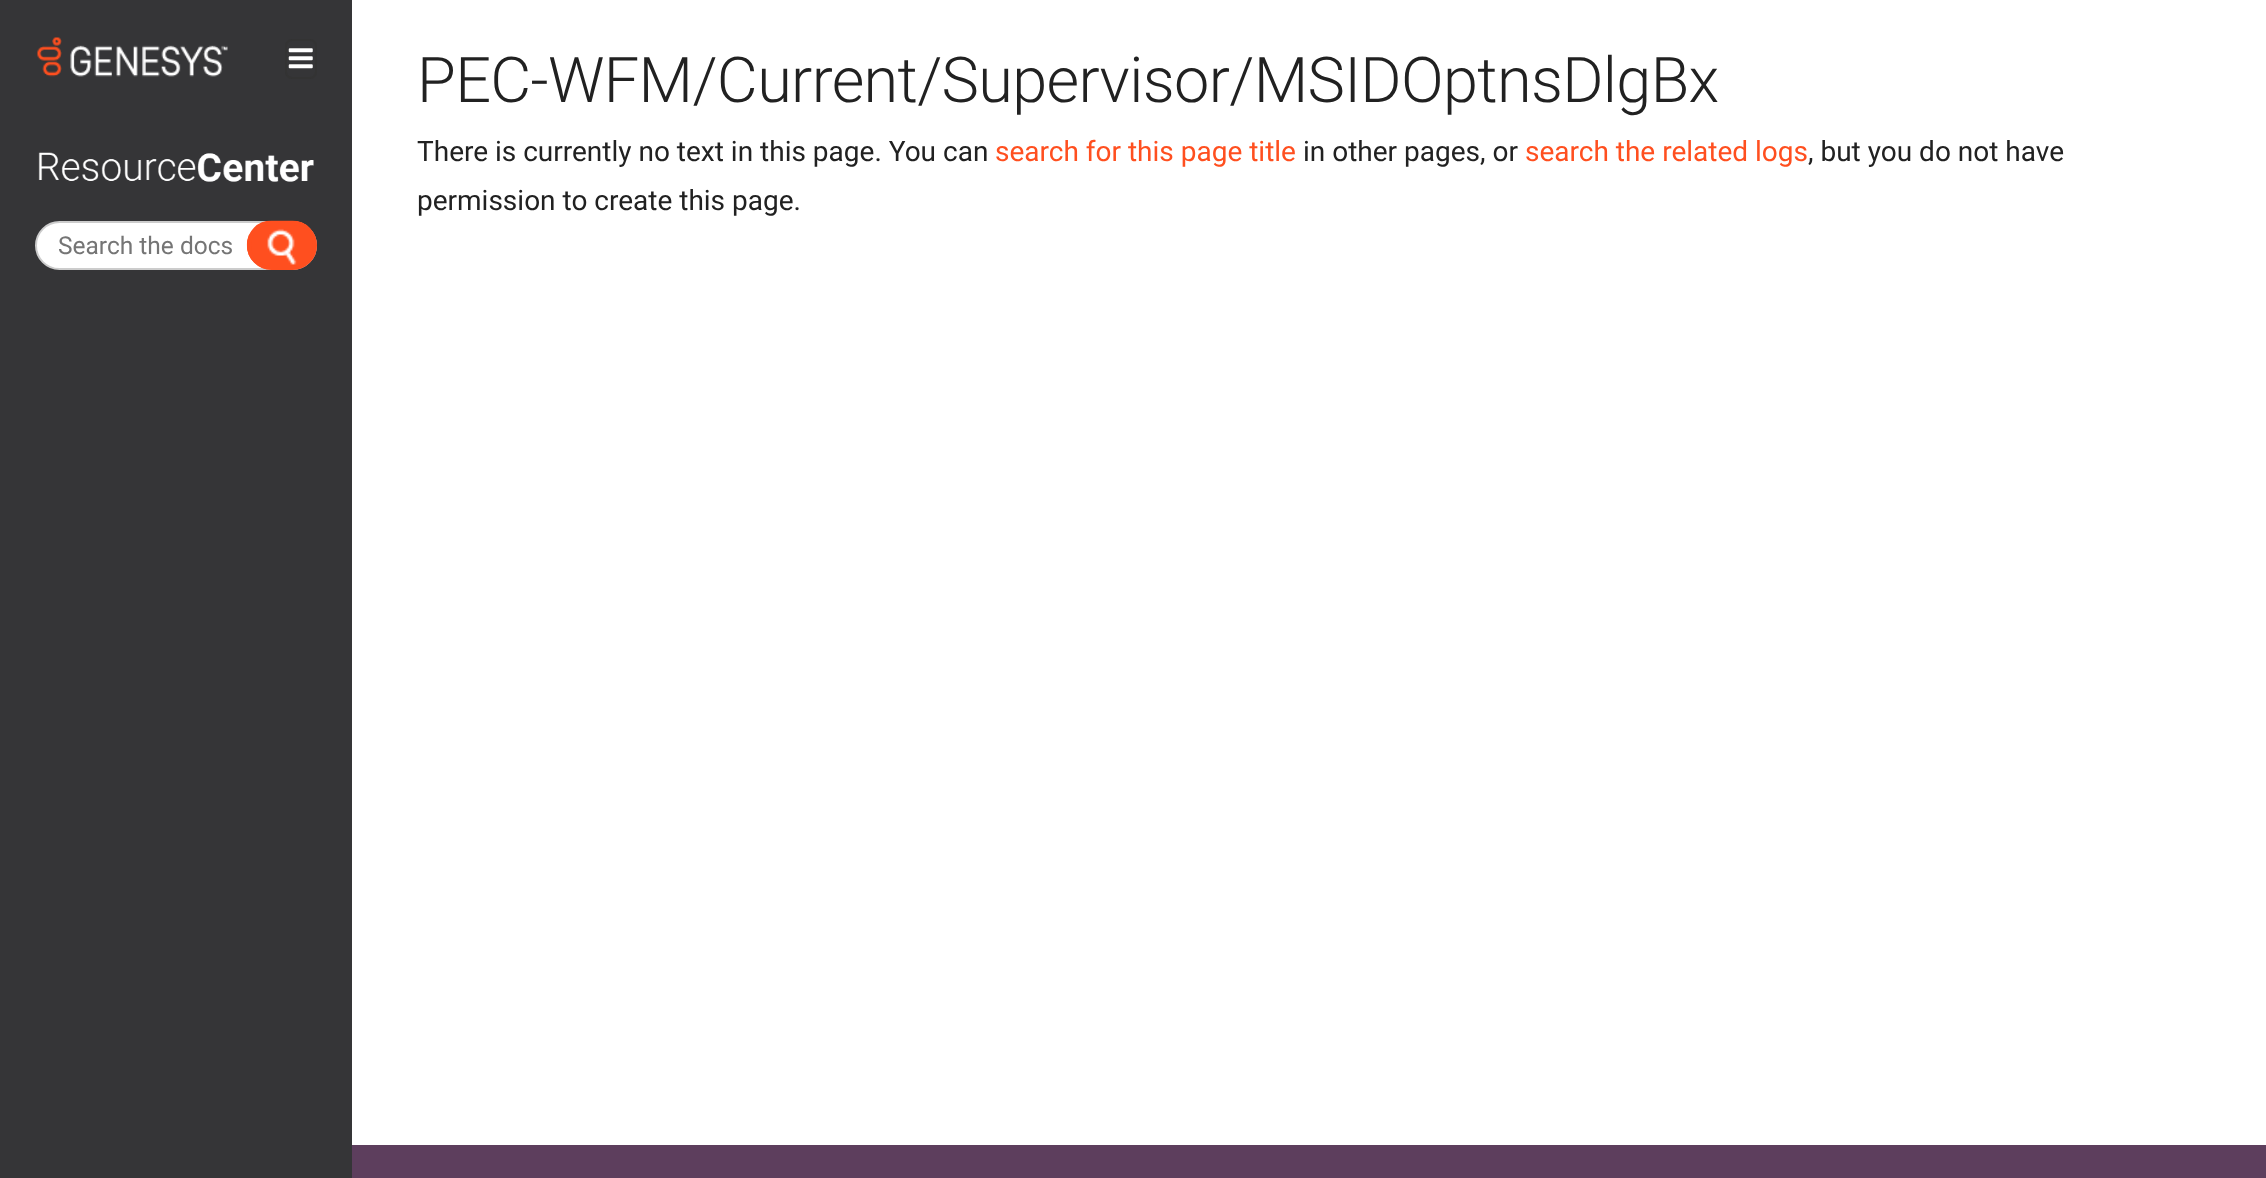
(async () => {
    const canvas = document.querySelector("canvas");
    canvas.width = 2266;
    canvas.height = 1178;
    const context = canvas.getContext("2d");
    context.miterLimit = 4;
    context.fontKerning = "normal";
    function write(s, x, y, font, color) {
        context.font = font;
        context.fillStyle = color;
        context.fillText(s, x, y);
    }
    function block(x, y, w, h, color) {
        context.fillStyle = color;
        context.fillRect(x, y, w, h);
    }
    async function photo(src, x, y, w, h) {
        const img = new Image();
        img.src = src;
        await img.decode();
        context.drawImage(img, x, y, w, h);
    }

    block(0, 0, 2266, 1178, "rgb(255, 255, 255)");
    context.letterSpacing = "-0.65px";
    write("PEC-WFM/Current/Supervisor/MSIDOptnsDlgBx", 417, 102, "300 63px Roboto", "rgb(33, 33, 33)");
    context.letterSpacing = "0px";
    write("There is currently no text in this page. You can", 417, 161, "28px Roboto", "rgb(33, 33, 33)");
    write("search for this page title", 995, 161, "28px Roboto", "rgb(255, 79, 31)");
    write("in other pages, or", 1303, 161, "28px Roboto", "rgb(33, 33, 33)");
    write("search the related logs", 1525, 161, "28px Roboto", "rgb(255, 79, 31)");
    write(", but you do not have", 1808, 161, "28px Roboto", "rgb(33, 33, 33)");
    write("permission to create this page.", 417, 210, "28px Roboto", "rgb(33, 33, 33)");
    block(0, 0, 352, 1178, "rgb(53, 53, 55)");
    await photo("media/1.png", 37, 37, 191, 40);
    context.beginPath();
    context.roundRect(286, 40, 30, 38, 6);
    context.strokeStyle = "rgb(51, 51, 51)";
    context.lineWidth = 2;
    context.stroke();
    await photo("media/2.png", 288, 48, 25, 21);
    await photo("media/3.png", 38, 152, 276, 30);
    context.fillStyle = "rgb(255, 255, 255)";
    context.beginPath();
    context.roundRect(36, 222, 280, 47, 23.5);
    context.fill();
    context.strokeStyle = "rgb(204, 204, 204)";
    context.stroke();
    write("Search the docs", 58, 254, "24.5px Roboto", "rgb(117, 117, 117)");
    await photo("media/4.png", 246, 220, 71, 50);
    context.beginPath();
    context.roundRect(249, 223, 66, 45, 22.5);
    context.strokeStyle = "rgb(255, 79, 31)";
    context.lineWidth = 4;
    context.stroke();
    block(352, 1145, 1914, 33, "rgb(93, 62, 93)");
})();
